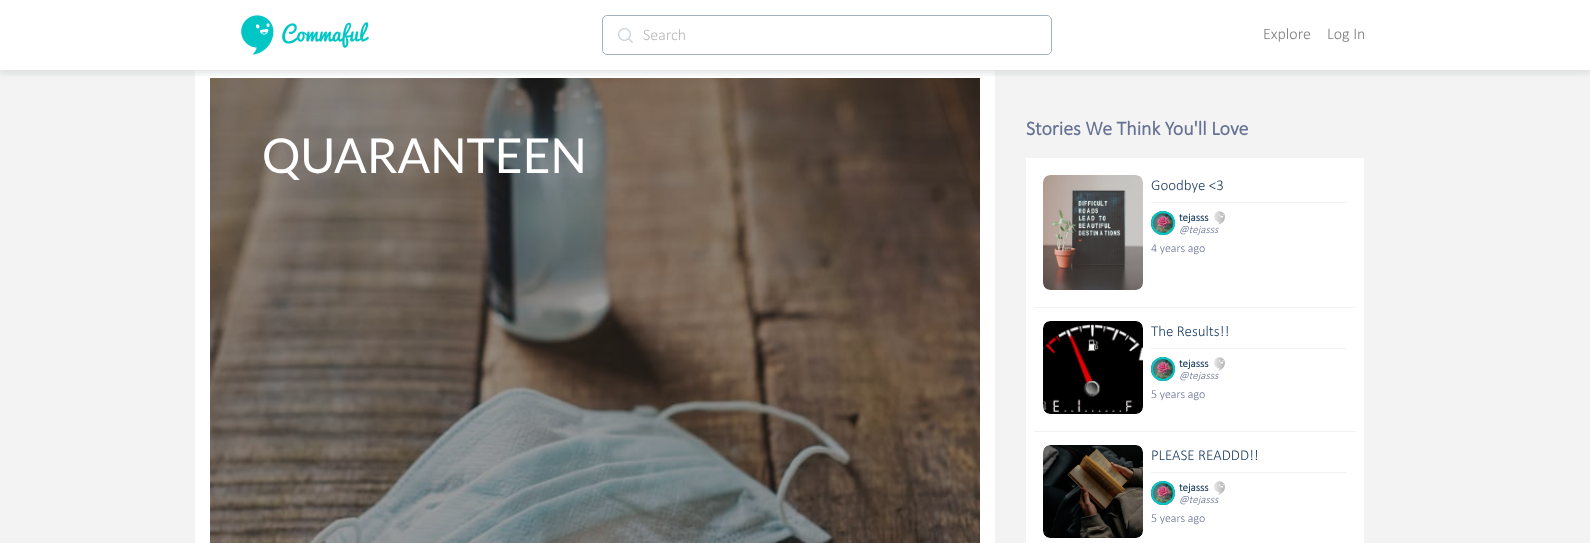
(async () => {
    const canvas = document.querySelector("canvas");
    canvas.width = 1590;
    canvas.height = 543;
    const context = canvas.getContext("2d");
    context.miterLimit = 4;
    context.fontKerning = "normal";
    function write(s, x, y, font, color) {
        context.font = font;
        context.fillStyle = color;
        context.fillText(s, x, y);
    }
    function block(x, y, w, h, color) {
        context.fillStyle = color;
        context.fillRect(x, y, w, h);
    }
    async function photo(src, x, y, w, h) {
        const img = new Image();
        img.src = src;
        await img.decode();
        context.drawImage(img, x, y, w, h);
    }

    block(0, 0, 1590, 543, "rgb(255, 255, 255)");
    block(0, 70, 1590, 473, "rgb(243, 243, 243)");
    block(195, 70, 800, 473, "rgb(255, 255, 255)");
    await photo("media/3.png", 210, 78, 770, 465);
    context.save();
    context.beginPath();
    context.rect(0, 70, 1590, 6);
    context.clip();
    context.fillStyle = "rgba(33, 65, 99, 0.1)";
    context.filter = "blur(5px)";
    context.beginPath();
    context.rect(0, 2, 1590, 70);
    context.fill();
    context.filter = "none";
    context.restore();
    context.save();
    context.beginPath();
    context.rect(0, 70, 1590, 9);
    context.clip();
    context.fillStyle = "rgb(220, 220, 220)";
    context.filter = "blur(4.5px)";
    context.beginPath();
    context.rect(0, 0, 1590, 70);
    context.fill();
    context.filter = "none";
    context.restore();
    await photo("media/1.png", 241, 15, 128, 40);
    await photo("media/2.png", 618, 28, 15, 15);
    context.fillStyle = "rgba(255, 255, 255, 0.5)";
    context.beginPath();
    context.roundRect(602.5, 15.5, 449, 39, 4.5);
    context.fill();
    context.strokeStyle = "rgb(164, 177, 191)";
    context.stroke();
    write("Search", 643, 40, "300 16px Calibri", "rgb(186, 186, 186)");
    write("Explore", 1263, 39, "300 16px Calibri", "rgb(128, 128, 128)");
    write("Log In", 1327, 39, "300 16px Calibri", "rgb(128, 128, 128)");
    write("QUARANTEEN", 262, 173, "48px Lato", "rgb(255, 255, 255)");
    write("Stories We Think You'll Love", 1026, 135, "bold 20px Calibri", "rgb(103, 114, 148)");
    block(1026, 158, 338, 385, "rgb(255, 255, 255)");
    await photo("media/4.png", 1043, 175, 100, 115);
    write("Goodbye <3", 1151, 190, "300 15px Calibri", "rgb(33, 65, 99)");
    block(1151, 202, 196, 1, "rgb(242, 242, 242)");
    await photo("media/5.png", 1151, 211, 24, 24);
    context.beginPath();
    context.arc(1163, 223, 11, 0, Math.PI * 2);
    context.strokeStyle = "rgb(0, 198, 198)";
    context.lineWidth = 2;
    context.stroke();
    write("tejasss", 1179, 221, "bold 11px Calibri", "rgb(33, 65, 99)");
    await photo("media/6.png", 1214, 211, 11, 14);
    write("@tejasss", 1179, 233, "italic 300 11px Calibri", "rgb(103, 114, 148)");
    write("4 years ago", 1151, 252, "300 12px Calibri", "rgb(103, 114, 148)");
    block(1034, 307, 322, 1, "rgb(242, 242, 242)");
    await photo("media/7.png", 1043, 321, 100, 93);
    write("The Results!!", 1151, 336, "300 15px Calibri", "rgb(33, 65, 99)");
    block(1151, 348, 196, 1, "rgb(242, 242, 242)");
    await photo("media/5.png", 1151, 357, 24, 24);
    context.beginPath();
    context.arc(1163, 369, 11, 0, Math.PI * 2);
    context.stroke();
    write("tejasss", 1179, 367, "bold 11px Calibri", "rgb(33, 65, 99)");
    await photo("media/6.png", 1214, 357, 11, 14);
    write("@tejasss", 1179, 379, "italic 300 11px Calibri", "rgb(103, 114, 148)");
    write("5 years ago", 1151, 398, "300 12px Calibri", "rgb(103, 114, 148)");
    block(1034, 431, 322, 1, "rgb(242, 242, 242)");
    await photo("media/8.png", 1043, 445, 100, 93);
    write("PLEASE READDD!!", 1151, 460, "300 15px Calibri", "rgb(33, 65, 99)");
    block(1151, 472, 196, 1, "rgb(242, 242, 242)");
    await photo("media/5.png", 1151, 481, 24, 24);
    context.beginPath();
    context.arc(1163, 493, 11, 0, Math.PI * 2);
    context.stroke();
    write("tejasss", 1179, 491, "bold 11px Calibri", "rgb(33, 65, 99)");
    await photo("media/6.png", 1214, 481, 11, 14);
    write("@tejasss", 1179, 503, "italic 300 11px Calibri", "rgb(103, 114, 148)");
    write("5 years ago", 1151, 522, "300 12px Calibri", "rgb(103, 114, 148)");
})();
